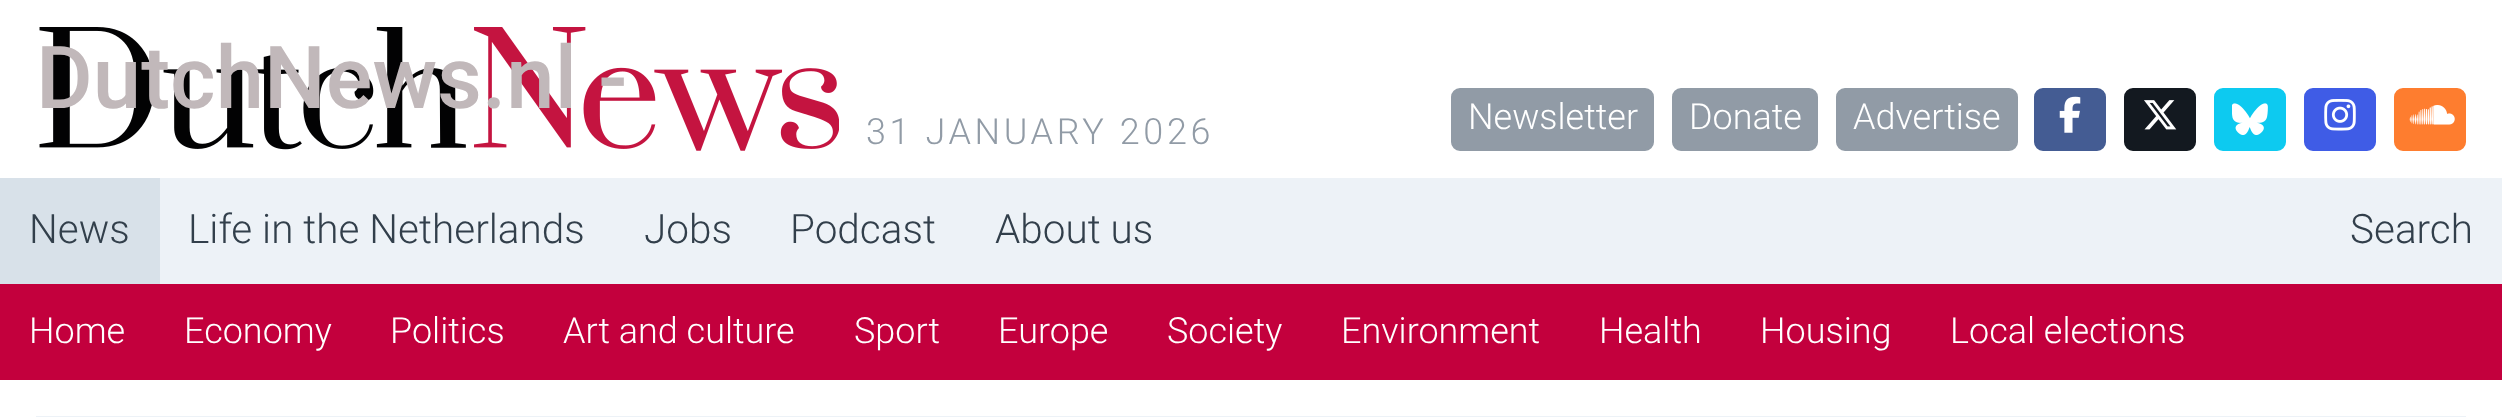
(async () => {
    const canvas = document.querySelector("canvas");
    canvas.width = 2502;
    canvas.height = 417;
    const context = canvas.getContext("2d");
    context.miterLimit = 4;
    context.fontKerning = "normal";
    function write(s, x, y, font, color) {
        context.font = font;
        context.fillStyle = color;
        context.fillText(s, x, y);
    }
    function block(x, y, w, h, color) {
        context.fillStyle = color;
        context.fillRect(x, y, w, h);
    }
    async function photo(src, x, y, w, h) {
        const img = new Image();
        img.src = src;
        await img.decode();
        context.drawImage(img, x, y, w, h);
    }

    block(0, 0, 2502, 417, "rgb(255, 255, 255)");
    await photo("media/1.png", 39, 27, 800, 124);
    write("DutchNews.nl -", 36, 108, "500 87px Roboto", "rgb(193, 184, 186)");
    context.letterSpacing = "3.6px";
    write("31 JANUARY 2026", 866, 144, "300 36px Roboto", "rgb(145, 155, 166)");
    context.beginPath();
    context.roundRect(1452, 89, 201, 61, 8);
    context.fill();
    context.strokeStyle = "rgb(145, 155, 166)";
    context.lineWidth = 2;
    context.stroke();
    context.letterSpacing = "0px";
    write("Newsletter", 1468, 129, "300 36px Roboto", "rgb(255, 255, 255)");
    context.fillStyle = "rgb(145, 155, 166)";
    context.beginPath();
    context.roundRect(1673, 89, 144, 61, 8);
    context.fill();
    context.stroke();
    write("Donate", 1689, 129, "300 36px Roboto", "rgb(255, 255, 255)");
    context.fillStyle = "rgb(145, 155, 166)";
    context.beginPath();
    context.roundRect(1837, 89, 180, 61, 8);
    context.fill();
    context.stroke();
    write("Advertise", 1853, 129, "300 36px Roboto", "rgb(255, 255, 255)");
    context.fillStyle = "rgb(68, 92, 147)";
    context.beginPath();
    context.roundRect(2035, 89, 70, 61, 8);
    context.fill();
    context.strokeStyle = "rgb(68, 92, 147)";
    context.stroke();
    await photo("media/2.png", 2059, 96, 22, 37);
    context.fillStyle = "rgb(19, 25, 32)";
    context.beginPath();
    context.roundRect(2125, 89, 70, 61, 8);
    context.fill();
    context.strokeStyle = "rgb(19, 25, 32)";
    context.stroke();
    await photo("media/3.png", 2144, 100, 33, 30);
    context.fillStyle = "rgb(13, 202, 240)";
    context.beginPath();
    context.roundRect(2215, 89, 70, 61, 8);
    context.fill();
    context.strokeStyle = "rgb(13, 202, 240)";
    context.stroke();
    await photo("media/4.png", 2232, 103, 36, 32);
    context.fillStyle = "rgb(63, 92, 230)";
    context.beginPath();
    context.roundRect(2305, 89, 70, 61, 8);
    context.fill();
    context.strokeStyle = "rgb(63, 92, 230)";
    context.stroke();
    await photo("media/5.png", 2324, 99, 32, 32);
    context.fillStyle = "rgb(254, 125, 47)";
    context.beginPath();
    context.roundRect(2395, 89, 70, 61, 8);
    context.fill();
    context.strokeStyle = "rgb(254, 125, 47)";
    context.stroke();
    await photo("media/6.png", 2409, 105, 46, 20);
    block(160, 178, 2342, 106, "rgb(237, 242, 247)");
    block(0, 178, 160, 106, "rgb(216, 225, 233)");
    write("News", 29, 243, "300 40.5px Roboto", "rgb(50, 63, 75)");
    write("Life in the Netherlands", 188, 243, "300 40.5px Roboto", "rgb(50, 63, 75)");
    write("Jobs", 644, 243, "300 40.5px Roboto", "rgb(50, 63, 75)");
    write("Podcast", 790, 243, "300 40.5px Roboto", "rgb(50, 63, 75)");
    write("About us", 995, 243, "300 40.5px Roboto", "rgb(50, 63, 75)");
    write("Search", 2350, 243, "300 40.5px Roboto", "rgb(50, 63, 75)");
    block(0, 284, 2502, 96, "rgb(195, 0, 61)");
    write("Home", 29, 343, "300 36px Roboto", "rgb(255, 255, 255)");
    write("Economy", 184, 343, "300 36px Roboto", "rgb(255, 255, 255)");
    write("Politics", 390, 343, "300 36px Roboto", "rgb(255, 255, 255)");
    write("Art and culture", 563, 343, "300 36px Roboto", "rgb(255, 255, 255)");
    write("Sport", 854, 343, "300 36px Roboto", "rgb(255, 255, 255)");
    write("Europe", 998, 343, "300 36px Roboto", "rgb(255, 255, 255)");
    write("Society", 1167, 343, "300 36px Roboto", "rgb(255, 255, 255)");
    write("Environment", 1341, 343, "300 36px Roboto", "rgb(255, 255, 255)");
    write("Health", 1599, 343, "300 36px Roboto", "rgb(255, 255, 255)");
    write("Housing", 1760, 343, "300 36px Roboto", "rgb(255, 255, 255)");
    write("Local elections", 1950, 343, "300 36px Roboto", "rgb(255, 255, 255)");
    block(36, 416, 2430, 1, "rgb(237, 242, 247)");
})();
